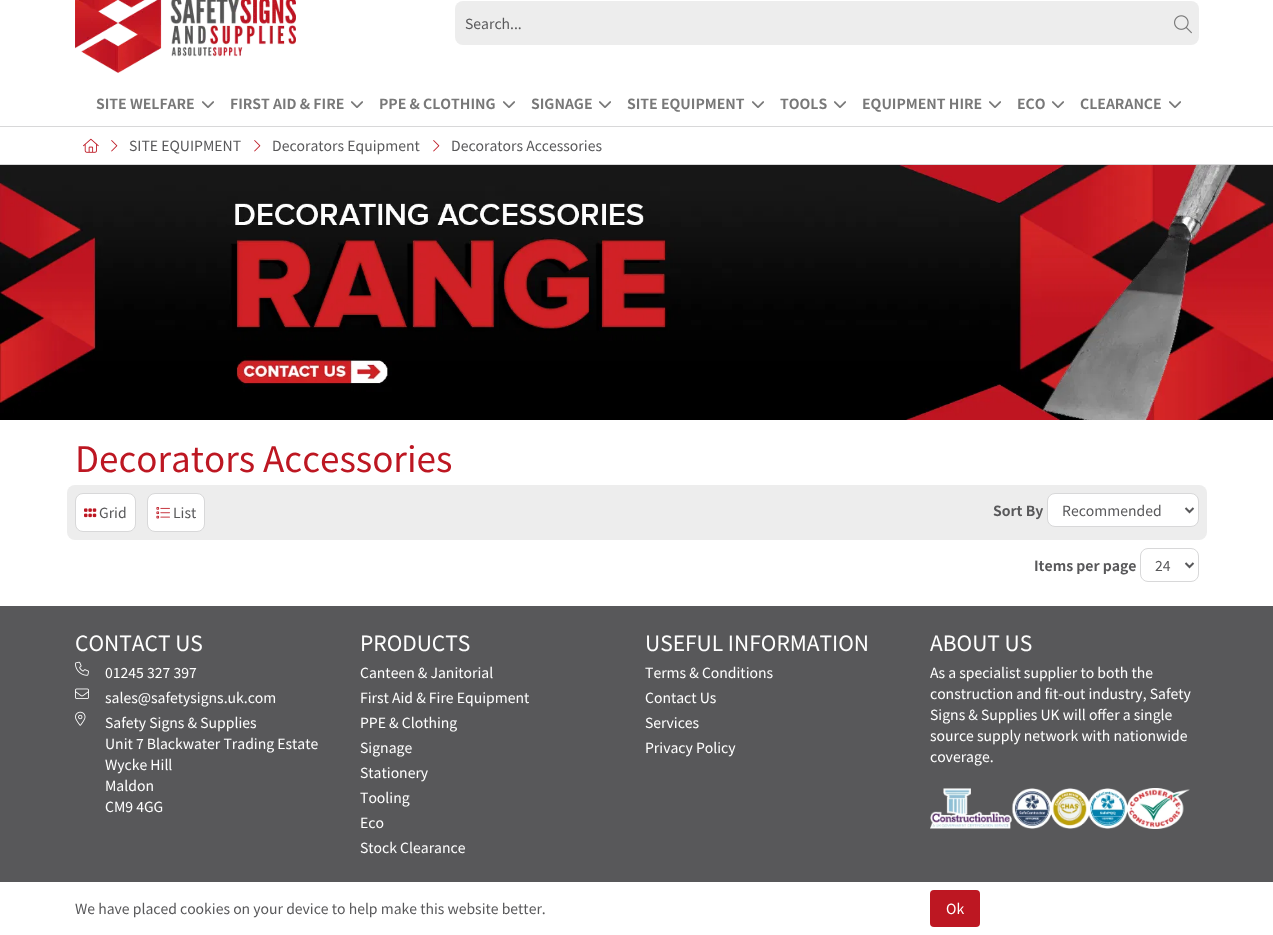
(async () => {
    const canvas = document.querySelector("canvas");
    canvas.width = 1273;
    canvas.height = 935;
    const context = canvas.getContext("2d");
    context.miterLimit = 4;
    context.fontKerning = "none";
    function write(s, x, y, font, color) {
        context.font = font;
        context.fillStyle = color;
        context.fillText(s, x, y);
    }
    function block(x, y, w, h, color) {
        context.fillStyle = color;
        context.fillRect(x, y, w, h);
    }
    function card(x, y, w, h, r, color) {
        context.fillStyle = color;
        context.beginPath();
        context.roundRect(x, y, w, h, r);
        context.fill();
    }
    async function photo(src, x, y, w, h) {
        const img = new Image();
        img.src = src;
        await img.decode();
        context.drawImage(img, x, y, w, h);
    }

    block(0, 0, 1273, 935, "rgb(255, 255, 255)");
    await photo("media/1.png", 75, 0, 221, 73);
    card(455, 1, 744, 44, 8, "rgb(237, 237, 237)");
    write("Search...", 465, 29, "14px Noto Sans JP", "rgb(88, 88, 90)");
    await photo("media/2.png", 1174, 15, 18, 19);
    block(0, 126, 1273, 1, "rgb(216, 216, 217)");
    write("SITE WELFARE", 96, 109, "bold 14px Noto Sans JP", "rgb(120, 120, 120)");
    await photo("media/3.png", 202, 101, 12, 7);
    write("FIRST AID & FIRE", 230, 109, "bold 14px Noto Sans JP", "rgb(120, 120, 120)");
    await photo("media/3.png", 351, 101, 12, 7);
    write("PPE & CLOTHING", 379, 109, "bold 14px Noto Sans JP", "rgb(120, 120, 120)");
    await photo("media/3.png", 503, 101, 12, 7);
    write("SIGNAGE", 531, 109, "bold 14px Noto Sans JP", "rgb(120, 120, 120)");
    await photo("media/3.png", 599, 101, 12, 7);
    write("SITE EQUIPMENT", 627, 109, "bold 14px Noto Sans JP", "rgb(120, 120, 120)");
    await photo("media/3.png", 752, 101, 12, 7);
    write("TOOLS", 780, 109, "bold 14px Noto Sans JP", "rgb(120, 120, 120)");
    await photo("media/3.png", 834, 101, 12, 7);
    write("EQUIPMENT HIRE", 862, 109, "bold 14px Noto Sans JP", "rgb(120, 120, 120)");
    await photo("media/3.png", 989, 101, 12, 7);
    write("ECO", 1017, 109, "bold 14px Noto Sans JP", "rgb(120, 120, 120)");
    await photo("media/3.png", 1052, 101, 12, 7);
    write("CLEARANCE", 1080, 109, "bold 14px Noto Sans JP", "rgb(120, 120, 120)");
    await photo("media/3.png", 1169, 101, 12, 7);
    block(0, 164, 1273, 1, "rgb(216, 216, 217)");
    await photo("media/4.png", 83, 138, 16, 15);
    await photo("media/5.png", 111, 140, 7, 12);
    write("SITE EQUIPMENT", 129, 151, "14px Noto Sans JP", "rgb(88, 88, 90)");
    await photo("media/5.png", 254, 140, 7, 12);
    write("Decorators Equipment", 272, 151, "14px Noto Sans JP", "rgb(88, 88, 90)");
    await photo("media/5.png", 433, 140, 7, 12);
    write("Decorators Accessories", 451, 151, "14px Noto Sans JP", "rgb(88, 88, 90)");
    await photo("media/6.png", 0, 165, 1273, 255);
    write("Decorators Accessories", 75, 472, "35px Noto Sans JP", "rgb(189, 23, 34)");
    card(67, 485, 1140, 55, 8, "rgb(237, 237, 237)");
    context.fillStyle = "rgb(255, 255, 255)";
    context.beginPath();
    context.roundRect(75.5, 493.5, 60, 38, 7.5);
    context.fill();
    context.strokeStyle = "rgb(216, 216, 217)";
    context.stroke();
    await photo("media/7.png", 84, 508, 13, 10);
    write("Grid", 99, 518, "14px Noto Sans JP", "rgb(88, 88, 90)");
    context.fillStyle = "rgb(255, 255, 255)";
    context.beginPath();
    context.roundRect(147.5, 493.5, 57, 38, 7.5);
    context.fill();
    context.stroke();
    await photo("media/8.png", 156, 507, 14, 12);
    write("List", 173, 518, "14px Noto Sans JP", "rgb(88, 88, 90)");
    write("Sort By", 993, 516, "bold 14px Noto Sans JP", "rgb(88, 88, 90)");
    context.fillStyle = "rgb(255, 255, 255)";
    context.beginPath();
    context.roundRect(1047.5, 493.5, 151, 33, 7.5);
    context.fill();
    context.stroke();
    context.beginPath();
    context.moveTo(1185.5, 508);
    context.lineTo(1189.5, 512);
    context.lineTo(1193.5, 508);
    context.strokeStyle = "rgb(88, 88, 90)";
    context.lineWidth = 2;
    context.stroke();
    write("Recommended", 1062, 516, "14px Noto Sans JP", "rgb(88, 88, 90)");
    write("Items per page", 1034, 571, "bold 14px Noto Sans JP", "rgb(88, 88, 90)");
    context.beginPath();
    context.roundRect(1140.5, 548.5, 58, 33, 7.5);
    context.strokeStyle = "rgb(216, 216, 217)";
    context.lineWidth = 1;
    context.stroke();
    context.beginPath();
    context.moveTo(1185.5, 563);
    context.lineTo(1189.5, 567);
    context.lineTo(1193.5, 563);
    context.strokeStyle = "rgb(88, 88, 90)";
    context.lineWidth = 2;
    context.stroke();
    write("24", 1155, 571, "14px Noto Sans JP", "rgb(88, 88, 90)");
    block(0, 606, 1273, 276, "rgb(88, 88, 90)");
    write("CONTACT US", 75, 651, "21px Noto Sans JP", "rgb(255, 255, 255)");
    await photo("media/9.png", 75, 661, 14, 15);
    write("01245 327 397", 105, 678, "14px Noto Sans JP", "rgb(255, 255, 255)");
    await photo("media/10.png", 75, 688, 14, 11);
    write("sales@safetysigns.uk.com", 105, 703, "14px Noto Sans JP", "rgb(255, 255, 255)");
    await photo("media/11.png", 75, 711, 11, 15);
    write("Safety Signs & Supplies", 105, 728, "14px Noto Sans JP", "rgb(255, 255, 255)");
    write("Unit 7 Blackwater Trading Estate", 105, 749, "14px Noto Sans JP", "rgb(255, 255, 255)");
    write("Wycke Hill", 105, 770, "14px Noto Sans JP", "rgb(255, 255, 255)");
    write("Maldon", 105, 791, "14px Noto Sans JP", "rgb(255, 255, 255)");
    write("CM9 4GG", 105, 812, "14px Noto Sans JP", "rgb(255, 255, 255)");
    write("PRODUCTS", 360, 651, "21px Noto Sans JP", "rgb(255, 255, 255)");
    write("Canteen & Janitorial", 360, 678, "14px Noto Sans JP", "rgb(255, 255, 255)");
    write("First Aid & Fire Equipment", 360, 703, "14px Noto Sans JP", "rgb(255, 255, 255)");
    write("PPE & Clothing", 360, 728, "14px Noto Sans JP", "rgb(255, 255, 255)");
    write("Signage", 360, 753, "14px Noto Sans JP", "rgb(255, 255, 255)");
    write("Stationery", 360, 778, "14px Noto Sans JP", "rgb(255, 255, 255)");
    write("Tooling", 360, 803, "14px Noto Sans JP", "rgb(255, 255, 255)");
    write("Eco", 360, 828, "14px Noto Sans JP", "rgb(255, 255, 255)");
    write("Stock Clearance", 360, 853, "14px Noto Sans JP", "rgb(255, 255, 255)");
    write("USEFUL INFORMATION", 645, 651, "21px Noto Sans JP", "rgb(255, 255, 255)");
    write("Terms & Conditions", 645, 678, "14px Noto Sans JP", "rgb(255, 255, 255)");
    write("Contact Us", 645, 703, "14px Noto Sans JP", "rgb(255, 255, 255)");
    write("Services", 645, 728, "14px Noto Sans JP", "rgb(255, 255, 255)");
    write("Privacy Policy", 645, 753, "14px Noto Sans JP", "rgb(255, 255, 255)");
    write("ABOUT US", 930, 651, "21px Noto Sans JP", "rgb(255, 255, 255)");
    write("As a specialist supplier to both the", 930, 678, "14px Noto Sans JP", "rgb(255, 255, 255)");
    write("construction and fit-out industry, Safety", 930, 699, "14px Noto Sans JP", "rgb(255, 255, 255)");
    write("Signs & Supplies UK will offer a single", 930, 720, "14px Noto Sans JP", "rgb(255, 255, 255)");
    write("source supply network with nationwide", 930, 741, "14px Noto Sans JP", "rgb(255, 255, 255)");
    write("coverage.", 930, 762, "14px Noto Sans JP", "rgb(255, 255, 255)");
    await photo("media/12.png", 930, 788, 260, 41);
    write("We have placed cookies on your device to help make this website better.", 75, 914, "14px Noto Sans JP", "rgb(88, 88, 90)");
    card(930, 890, 50, 37, 4, "rgb(189, 23, 34)");
    write("Ok", 946, 914, "14px Noto Sans JP", "rgb(255, 255, 255)");
})();
